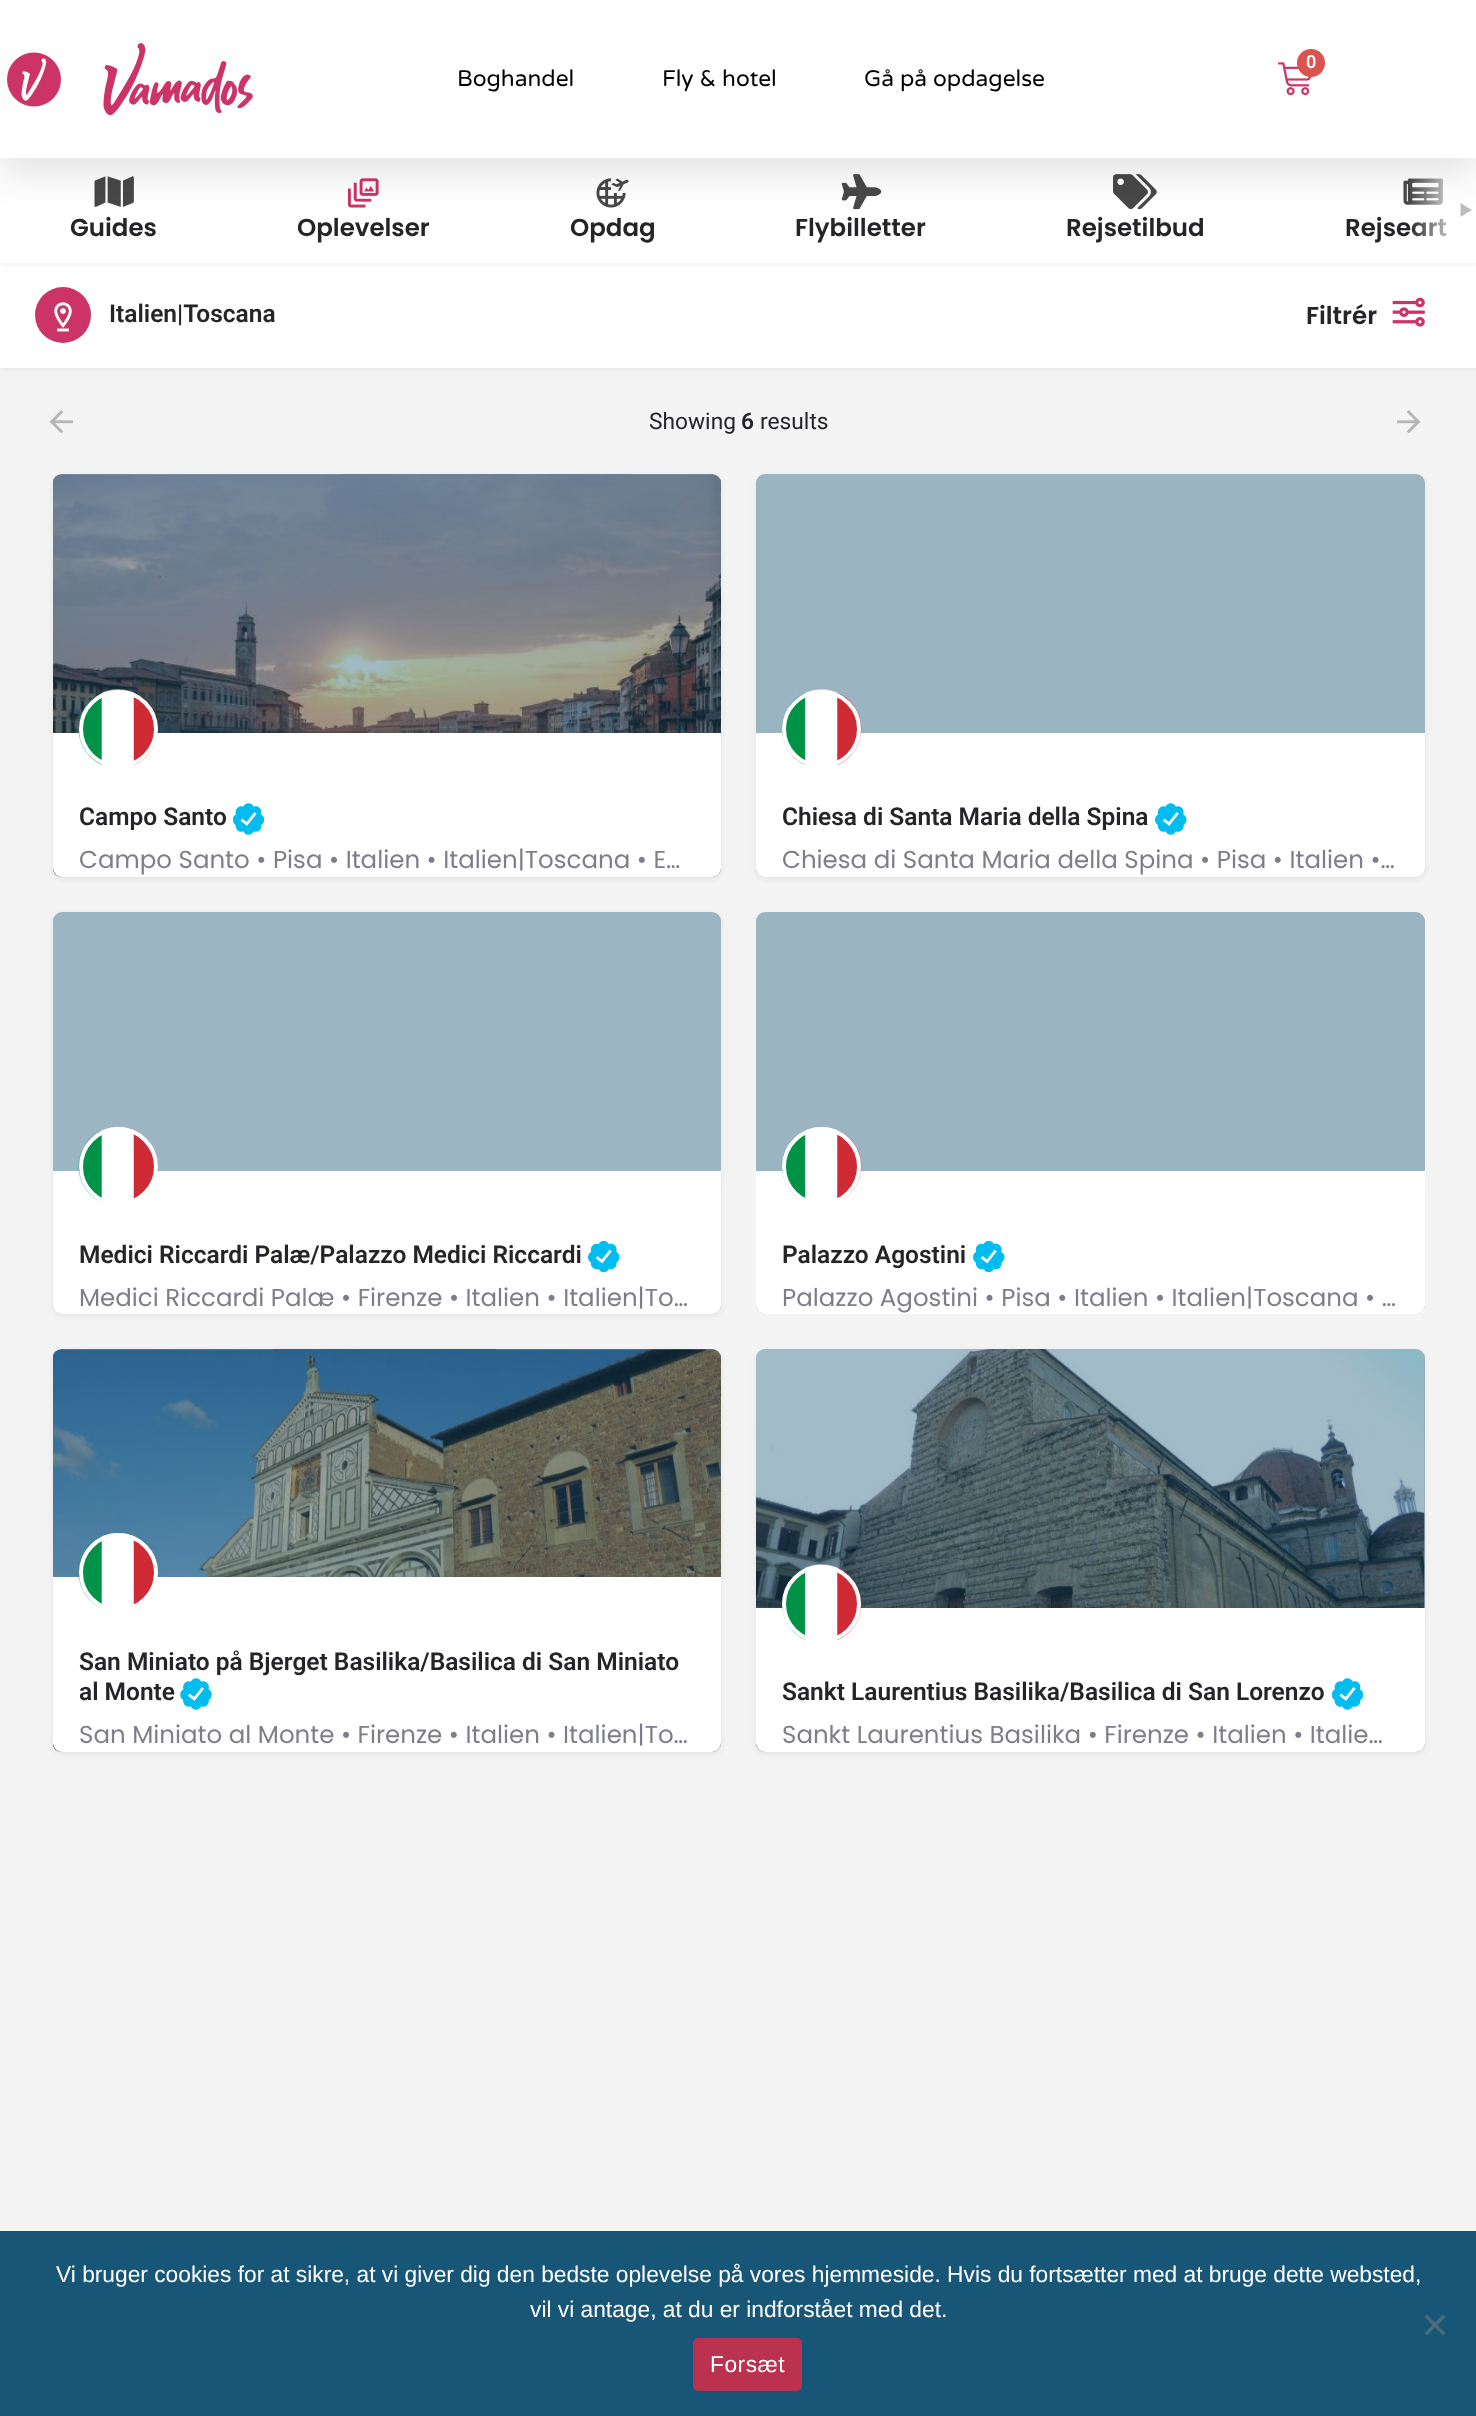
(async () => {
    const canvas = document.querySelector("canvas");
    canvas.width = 1476;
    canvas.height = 2416;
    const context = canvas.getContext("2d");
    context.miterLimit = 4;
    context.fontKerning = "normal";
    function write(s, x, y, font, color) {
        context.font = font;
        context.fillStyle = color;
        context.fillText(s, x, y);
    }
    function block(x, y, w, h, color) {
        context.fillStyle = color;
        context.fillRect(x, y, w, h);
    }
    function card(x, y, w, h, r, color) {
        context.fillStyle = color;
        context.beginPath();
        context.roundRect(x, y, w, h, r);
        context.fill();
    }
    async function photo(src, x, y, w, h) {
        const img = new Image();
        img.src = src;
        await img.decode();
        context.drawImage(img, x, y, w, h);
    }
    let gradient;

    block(0, 0, 1476, 2416, "rgb(244, 244, 244)");
    context.fillStyle = "rgba(0, 0, 0, 0.07)";
    context.filter = "blur(3.5px)";
    context.beginPath();
    context.rect(0, 264, 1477, 105);
    context.fill();
    context.filter = "none";
    block(0, 263, 1476, 105, "rgb(255, 255, 255)");
    context.fillStyle = "rgba(0, 0, 0, 0.07)";
    context.filter = "blur(3.5px)";
    context.beginPath();
    context.rect(0, 159, 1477, 105);
    context.fill();
    context.filter = "none";
    block(0, 158, 1463, 105, "rgb(255, 255, 255)");
    await photo("media/4.png", 94, 176, 40, 31);
    await photo("media/5.png", 841, 174, 41, 36);
    await photo("media/6.png", 1113, 174, 44, 36);
    await photo("media/9.png", 1403, 178, 40, 27);
    write("Rejseart", 1345, 236, "600 24.5px Poppins", "rgb(36, 36, 41)");
    gradient = context.createLinearGradient(1409, 210, 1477, 210);
    gradient.addColorStop(0, "rgba(255, 255, 255, 0)");
    gradient.addColorStop(0.8, "rgb(255, 255, 255)");
    context.fillStyle = gradient;
    context.fillRect(1410, 158, 66, 105);
    context.fillStyle = "rgb(189, 189, 191)";
    context.beginPath();
    context.moveTo(1460.5, 203);
    context.lineTo(1472, 210);
    context.lineTo(1460.5, 217);
    context.closePath();
    context.fill();
    await photo("media/7.png", 347, 178, 32, 30);
    await photo("media/8.png", 596, 178, 33, 30);
    context.fillStyle = "rgba(0, 0, 0, 0.1)";
    context.filter = "blur(17.5px)";
    context.beginPath();
    context.rect(0, 18, 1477, 157);
    context.fill();
    context.filter = "none";
    block(0, 0, 1476, 158, "rgb(255, 255, 255)");
    await photo("media/1.png", 7, 52, 54, 55);
    await photo("media/2.png", 103, 43, 150, 73);
    await photo("media/3.png", 1278, 62, 34, 34);
    context.fillStyle = "rgb(217, 83, 79)";
    context.beginPath();
    context.arc(1311, 63, 14, 0, Math.PI * 2);
    context.fill();
    write("0", 1306, 68, "600 18px Roboto", "rgb(255, 255, 255)");
    write("Boghandel", 457, 86, "22.75px Varela Round", "rgb(0, 0, 0)");
    write("Fly & hotel", 662, 86, "22.75px Varela Round", "rgb(0, 0, 0)");
    write("Gå på opdagelse", 864, 86, "22.75px Varela Round", "rgb(0, 0, 0)");
    write("Guides", 70, 236, "600 24.5px Poppins", "rgb(36, 36, 41)");
    write("Flybilletter", 795, 236, "600 24.5px Poppins", "rgb(36, 36, 41)");
    write("Rejsetilbud", 1066, 236, "600 24.5px Poppins", "rgb(36, 36, 41)");
    write("Oplevelser", 297, 236, "600 24.5px Poppins", "rgb(36, 36, 41)");
    write("Opdag", 570, 236, "600 24.5px Poppins", "rgb(36, 36, 41)");
    context.fillStyle = "rgb(204, 51, 102)";
    context.beginPath();
    context.arc(63, 315, 28, 0, Math.PI * 2);
    context.fill();
    await photo("media/10.png", 54, 302, 18, 30);
    write("Italien|Toscana", 109, 322, "600 24.5px Roboto", "rgb(36, 36, 41)");
    write("Filtrér", 1306, 324, "600 24.5px Poppins", "rgb(36, 36, 41)");
    await photo("media/11.png", 1392, 297, 33, 30);
    await photo("media/12.png", 49, 410, 24, 24);
    write("Showing", 649, 429, "22.75px Roboto", "rgb(36, 36, 41)");
    write("6", 741, 429, "600 22.75px Roboto", "rgb(36, 36, 41)");
    write("results", 760, 429, "22.75px Roboto", "rgb(36, 36, 41)");
    await photo("media/13.png", 1397, 410, 24, 24);
    context.fillStyle = "rgba(0, 0, 0, 0.07)";
    context.filter = "blur(3.5px)";
    context.beginPath();
    context.roundRect(53, 476, 668, 403, 9);
    context.fill();
    context.filter = "none";
    await photo("media/14.png", 53, 474, 668, 403);
    card(53, 474, 668, 403, 9, "rgba(23, 86, 118, 0.4)");
    context.fillStyle = "rgb(255, 255, 255)";
    context.beginPath();
    context.roundRect(53, 733, 668, 144, [0, 0, 9, 9]);
    context.fill();
    await photo("media/15.png", 78, 689, 80, 77);
    context.beginPath();
    context.roundRect(81, 692, 75, 74, 37);
    context.strokeStyle = "rgb(255, 255, 255)";
    context.lineWidth = 4;
    context.stroke();
    write("Campo Santo", 79, 825, "600 24.5px Roboto", "rgb(36, 36, 41)");
    await photo("media/16.png", 233, 803, 31, 32);
    write("Campo Santo • Pisa • Italien • Italien|Toscana • E…", 79, 868, "24.5px Poppins", "rgb(126, 126, 137)");
    context.save();
    context.beginPath();
    context.moveTo(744, 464);
    context.lineTo(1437, 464);
    context.lineTo(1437, 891);
    context.lineTo(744, 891);
    context.closePath();
    context.moveTo(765, 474);
    context.lineTo(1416, 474);
    context.bezierCurveTo(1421, 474, 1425, 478, 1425, 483);
    context.lineTo(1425, 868);
    context.bezierCurveTo(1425, 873, 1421, 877, 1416, 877);
    context.lineTo(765, 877);
    context.bezierCurveTo(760, 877, 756, 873, 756, 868);
    context.lineTo(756, 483);
    context.bezierCurveTo(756, 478, 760, 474, 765, 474);
    context.closePath();
    context.clip("evenodd");
    context.fillStyle = "rgba(0, 0, 0, 0.07)";
    context.filter = "blur(3.5px)";
    context.beginPath();
    context.roundRect(756, 476, 669, 403, 9);
    context.fill();
    context.filter = "none";
    context.restore();
    card(756, 474, 669, 403, 9, "rgba(23, 86, 118, 0.4)");
    context.fillStyle = "rgb(255, 255, 255)";
    context.beginPath();
    context.roundRect(756, 733, 669, 144, [0, 0, 9, 9]);
    context.fill();
    await photo("media/17.png", 782, 689, 80, 77);
    context.beginPath();
    context.roundRect(784, 692, 75, 74, 37);
    context.stroke();
    write("Chiesa di Santa Maria della Spina", 782, 825, "600 24.5px Roboto", "rgb(36, 36, 41)");
    await photo("media/18.png", 1155, 803, 32, 32);
    write("Chiesa di Santa Maria della Spina • Pisa • Italien •…", 782, 868, "24.5px Poppins", "rgb(126, 126, 137)");
    context.fillStyle = "rgba(0, 0, 0, 0.07)";
    context.filter = "blur(3.5px)";
    context.beginPath();
    context.roundRect(53, 914, 668, 402, 9);
    context.fill();
    context.filter = "none";
    card(53, 912, 668, 402, 9, "rgb(156, 181, 194)");
    context.fillStyle = "rgb(255, 255, 255)";
    context.beginPath();
    context.roundRect(53, 1171, 668, 143, [0, 0, 9, 9]);
    context.fill();
    await photo("media/19.png", 78, 1127, 80, 76);
    context.beginPath();
    context.arc(118.5, 1166.5, 37.5, 0, Math.PI * 2);
    context.stroke();
    write("Medici Riccardi Palæ/Palazzo Medici Riccardi", 79, 1263, "600 24.5px Roboto", "rgb(36, 36, 41)");
    await photo("media/20.png", 588, 1241, 32, 31);
    write("Medici Riccardi Palæ • Firenze • Italien • Italien|To…", 79, 1306, "24.5px Poppins", "rgb(126, 126, 137)");
    card(756, 912, 669, 402, 9, "rgba(23, 86, 118, 0.4)");
    context.fillStyle = "rgb(255, 255, 255)";
    context.beginPath();
    context.roundRect(756, 1171, 669, 143, [0, 0, 9, 9]);
    context.fill();
    await photo("media/21.png", 782, 1127, 80, 76);
    context.beginPath();
    context.arc(821.5, 1166.5, 37.5, 0, Math.PI * 2);
    context.stroke();
    write("Palazzo Agostini", 782, 1263, "600 24.5px Roboto", "rgb(36, 36, 41)");
    await photo("media/20.png", 973, 1241, 32, 31);
    write("Palazzo Agostini • Pisa • Italien • Italien|Toscana • …", 782, 1306, "24.5px Poppins", "rgb(126, 126, 137)");
    context.fillStyle = "rgba(0, 0, 0, 0.07)";
    context.filter = "blur(3.5px)";
    context.beginPath();
    context.roundRect(53, 1351, 668, 403, 9);
    context.fill();
    context.filter = "none";
    await photo("media/22.png", 53, 1349, 668, 403);
    card(53, 1349, 668, 403, 9, "rgba(23, 86, 118, 0.4)");
    context.fillStyle = "rgb(255, 255, 255)";
    context.beginPath();
    context.roundRect(53, 1577, 668, 175, [0, 0, 9, 9]);
    context.fill();
    await photo("media/23.png", 78, 1533, 80, 76);
    context.beginPath();
    context.arc(118.5, 1572.5, 37.5, 0, Math.PI * 2);
    context.stroke();
    write("San Miniato på Bjerget Basilika/Basilica di San Miniato", 79, 1670, "600 24.5px Roboto", "rgb(36, 36, 41)");
    write("al Monte", 79, 1700, "600 24.5px Roboto", "rgb(36, 36, 41)");
    await photo("media/24.png", 180, 1678, 32, 32);
    write("San Miniato al Monte • Firenze • Italien • Italien|To…", 79, 1743, "24.5px Poppins", "rgb(126, 126, 137)");
    context.fillStyle = "rgba(0, 0, 0, 0.07)";
    context.filter = "blur(3.5px)";
    context.beginPath();
    context.roundRect(756, 1351, 669, 403, 9);
    context.fill();
    context.filter = "none";
    await photo("media/25.png", 756, 1349, 669, 403);
    card(756, 1349, 669, 403, 9, "rgba(23, 86, 118, 0.4)");
    context.fillStyle = "rgb(255, 255, 255)";
    context.beginPath();
    context.roundRect(756, 1608, 669, 144, [0, 0, 9, 9]);
    context.fill();
    await photo("media/26.png", 782, 1564, 80, 77);
    context.beginPath();
    context.roundRect(784, 1567, 75, 74, 37);
    context.stroke();
    write("Sankt Laurentius Basilika/Basilica di San Lorenzo", 782, 1700, "600 24.5px Roboto", "rgb(36, 36, 41)");
    await photo("media/16.png", 1332, 1678, 31, 32);
    write("Sankt Laurentius Basilika • Firenze • Italien • Italie…", 782, 1743, "24.5px Poppins", "rgb(126, 126, 137)");
    block(0, 2231, 1476, 185, "rgb(23, 86, 118)");
    write("Vi bruger cookies for at sikre, at vi giver dig den bedste oplevelse på vores hjemmeside. Hvis du fortsætter med at bruge dette websted,", 56, 2282, "22.75px Liberation Sans", "rgb(255, 255, 255)");
    write("vil vi antage, at du er indforstået med det.", 530, 2317, "22.75px Liberation Sans", "rgb(255, 255, 255)");
    context.fillStyle = "rgb(76, 107, 123)";
    context.beginPath();
    context.moveTo(1443, 2314.5);
    context.lineTo(1445.5, 2317);
    context.lineTo(1427, 2335.5);
    context.lineTo(1424.5, 2333);
    context.closePath();
    context.fill();
    context.beginPath();
    context.moveTo(1424.5, 2317);
    context.lineTo(1427, 2314.5);
    context.lineTo(1445.5, 2333);
    context.lineTo(1443, 2335.5);
    context.closePath();
    context.fill();
    card(693, 2338, 109, 53, 5, "rgb(186, 50, 79)");
    context.letterSpacing = "0.5px";
    write("Forsæt", 710, 2372, "22.75px Liberation Sans", "rgb(255, 255, 255)");
})();
